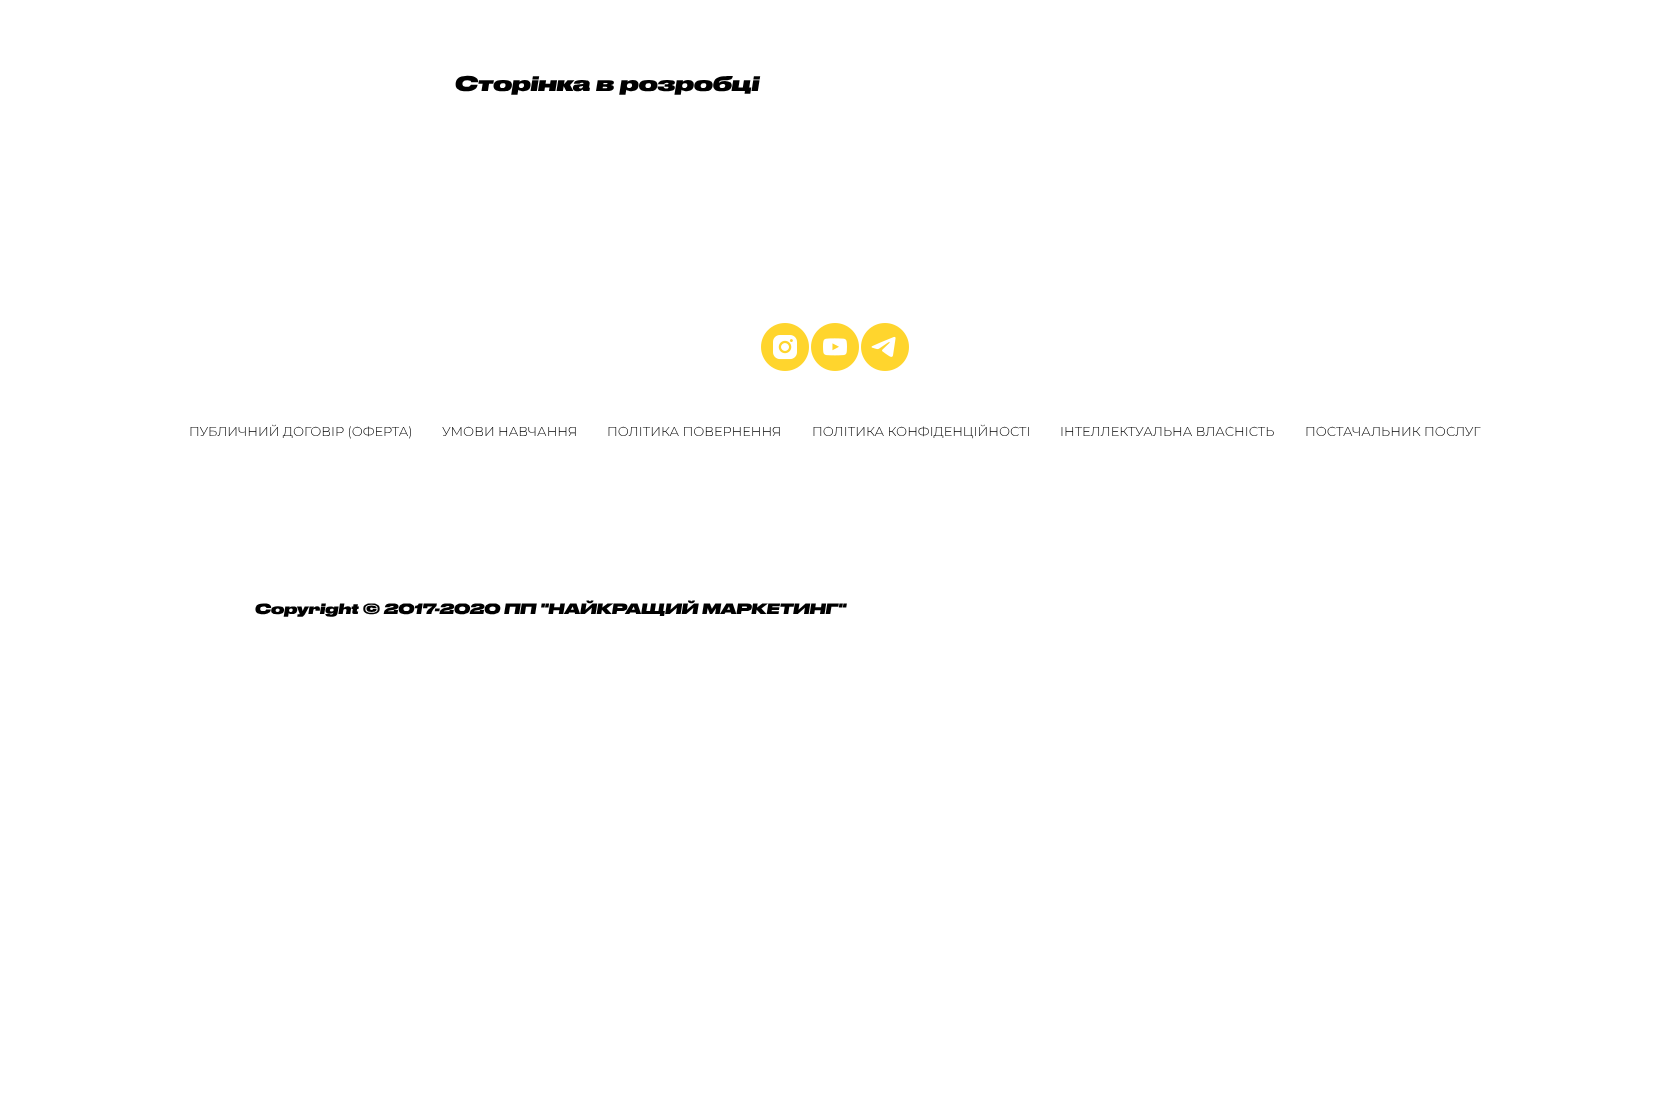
(async () => {
    const canvas = document.querySelector("canvas");
    canvas.width = 1669;
    canvas.height = 1116;
    const context = canvas.getContext("2d");
    context.miterLimit = 4;
    context.fontKerning = "normal";
    function write(s, x, y, font, color) {
        context.font = font;
        context.fillStyle = color;
        context.fillText(s, x, y);
    }
    function block(x, y, w, h, color) {
        context.fillStyle = color;
        context.fillRect(x, y, w, h);
    }
    async function photo(src, x, y, w, h) {
        const img = new Image();
        img.src = src;
        await img.decode();
        context.drawImage(img, x, y, w, h);
    }

    block(0, 0, 1669, 1116, "rgb(255, 255, 255)");
    write("Сторінка в розробці", 455, 91, "italic 900 20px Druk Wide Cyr", "rgb(0, 0, 0)");
    await photo("media/1.png", 761, 323, 48, 48);
    await photo("media/2.png", 811, 323, 48, 48);
    await photo("media/3.png", 861, 323, 48, 48);
    write("ПУБЛИЧНИЙ ДОГОВІР (ОФЕРТА)", 189, 436, "300 13px Montserrat", "rgb(0, 0, 0)");
    write("УМОВИ НАВЧАННЯ", 442, 436, "300 13px Montserrat", "rgb(0, 0, 0)");
    write("ПОЛІТИКА ПОВЕРНЕННЯ", 607, 436, "300 13px Montserrat", "rgb(0, 0, 0)");
    write("ПОЛІТИКА КОНФІДЕНЦІЙНОСТІ", 812, 436, "300 13px Montserrat", "rgb(0, 0, 0)");
    write("ІНТЕЛЛЕКТУАЛЬНА ВЛАСНІСТЬ", 1060, 436, "300 13px Montserrat", "rgb(0, 0, 0)");
    write("ПОСТАЧАЛЬНИК ПОСЛУГ", 1305, 436, "300 13px Montserrat", "rgb(0, 0, 0)");
    write("Copyright © 2017-2020 ПП \"НАЙКРАЩИЙ МАРКЕТИНГ\"", 255, 614, "italic 900 14px Druk Wide Cyr", "rgb(0, 0, 0)");
})();
